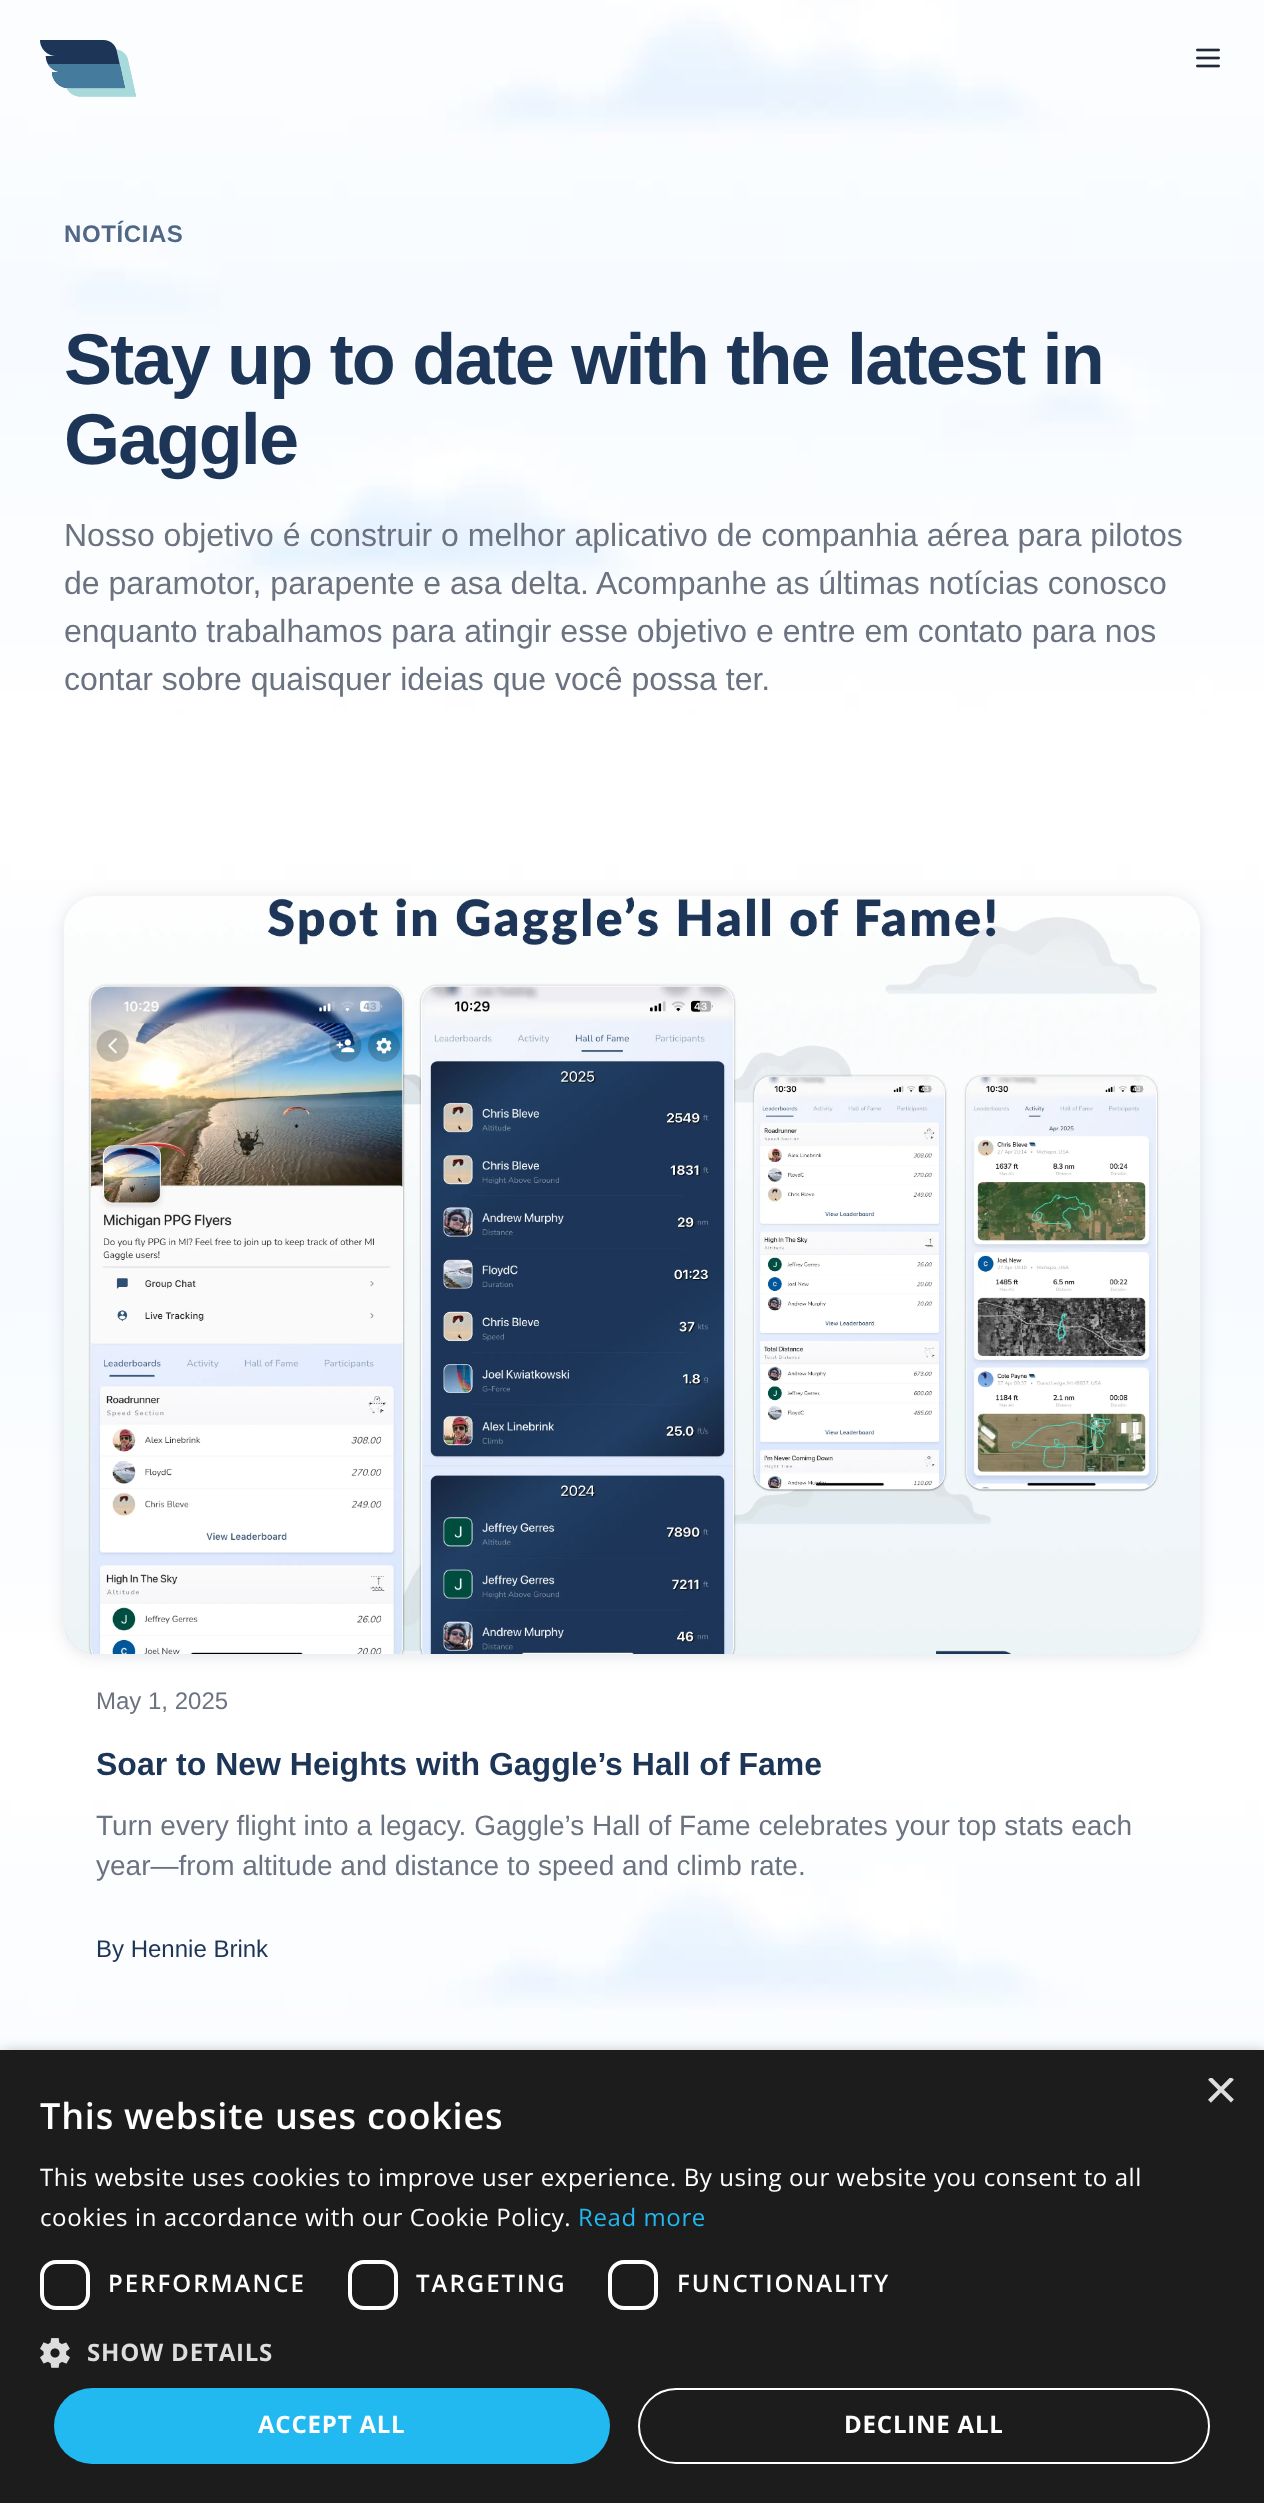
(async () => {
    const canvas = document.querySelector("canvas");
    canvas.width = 1264;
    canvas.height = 2503;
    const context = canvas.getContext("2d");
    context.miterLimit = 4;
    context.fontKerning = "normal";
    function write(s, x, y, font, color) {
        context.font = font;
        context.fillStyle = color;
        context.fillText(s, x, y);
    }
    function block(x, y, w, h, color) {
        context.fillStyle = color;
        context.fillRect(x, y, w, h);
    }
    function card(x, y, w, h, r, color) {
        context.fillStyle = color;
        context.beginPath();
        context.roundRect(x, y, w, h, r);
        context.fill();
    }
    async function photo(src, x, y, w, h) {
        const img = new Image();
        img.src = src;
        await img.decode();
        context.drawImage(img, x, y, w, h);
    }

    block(0, 0, 1264, 2503, "rgb(255, 255, 255)");
    await photo("media/1.png", 0, 0, 1264, 2050);
    await photo("media/2.png", 40, 40, 96, 57);
    await photo("media/3.png", 1196, 48, 24, 20);
    context.letterSpacing = "0.6px";
    write("NOTÍCIAS", 64, 242, "bold 24px Liberation Sans", "rgb(80, 103, 135)");
    context.letterSpacing = "-1.8px";
    write("Stay up to date with the latest in", 64, 384, "bold 72px Liberation Sans", "rgb(29, 53, 87)");
    write("Gaggle", 64, 464, "bold 72px Liberation Sans", "rgb(29, 53, 87)");
    context.letterSpacing = "0px";
    write("Nosso objetivo é construir o melhor aplicativo de companhia aérea para pilotos", 64, 546, "32px Liberation Sans", "rgb(107, 114, 128)");
    write("de paramotor, parapente e asa delta. Acompanhe as últimas notícias conosco", 64, 594, "32px Liberation Sans", "rgb(107, 114, 128)");
    write("enquanto trabalhamos para atingir esse objetivo e entre em contato para nos", 64, 642, "32px Liberation Sans", "rgb(107, 114, 128)");
    write("contar sobre quaisquer ideias que você possa ter.", 64, 690, "32px Liberation Sans", "rgb(107, 114, 128)");
    context.fillStyle = "rgba(13, 34, 71, 0.12)";
    context.filter = "blur(8px)";
    context.beginPath();
    context.roundRect(64, 898, 1136, 758, 32);
    context.fill();
    context.filter = "none";
    card(64, 896, 1136, 758, 32, "rgb(250, 250, 250)");
    context.fillStyle = "rgba(13, 34, 71, 0.12)";
    context.beginPath();
    context.moveTo(64, 1620);
    context.lineTo(64, 1622);
    context.bezierCurveTo(64, 1640, 78, 1654, 96, 1654);
    context.lineTo(1168, 1654);
    context.bezierCurveTo(1186, 1654, 1200, 1640, 1200, 1622);
    context.lineTo(1200, 1620);
    context.bezierCurveTo(1200, 1638, 1186, 1652, 1168, 1652);
    context.lineTo(96, 1652);
    context.bezierCurveTo(78, 1652, 64, 1638, 64, 1620);
    context.closePath();
    context.fill();
    await photo("media/4.png", 64, 896, 1136, 758);
    write("May 1, 2025", 96, 1709, "24px Liberation Sans", "rgb(107, 114, 128)");
    write("Soar to New Heights with Gaggle’s Hall of Fame", 96, 1775, "bold 32px Liberation Sans", "rgb(29, 53, 87)");
    write("Turn every flight into a legacy. Gaggle’s Hall of Fame celebrates your top stats each", 96, 1835, "28px Liberation Sans", "rgb(107, 114, 128)");
    write("year—from altitude and distance to speed and climb rate.", 96, 1875, "28px Liberation Sans", "rgb(107, 114, 128)");
    write("By Hennie Brink", 96, 1957, "24px Liberation Sans", "rgb(29, 53, 87)");
    context.fillStyle = "rgba(0, 0, 0, 0.35)";
    context.filter = "blur(8px)";
    context.beginPath();
    context.rect(2, 2054, 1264, 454);
    context.fill();
    context.filter = "none";
    block(0, 2050, 1264, 453, "rgb(28, 28, 28)");
    context.save();
    context.beginPath();
    context.rect(1204, 2078, 30, 30);
    context.clip();
    write("×", 1204, 2109, "58px Liberation Sans", "rgb(221, 221, 221)");
    context.restore();
    context.letterSpacing = "0.8px";
    write("This website uses cookies", 40, 2129, "600 36px Open Sans", "rgb(255, 255, 255)");
    context.letterSpacing = "0.6px";
    write("This website uses cookies to improve user experience. By using our website you consent to all", 40, 2186, "24px Open Sans", "rgb(255, 255, 255)");
    write("cookies in accordance with our Cookie Policy.", 40, 2226, "24px Open Sans", "rgb(255, 255, 255)");
    write("Read more", 578, 2226, "24px Open Sans", "rgb(34, 184, 240)");
    context.beginPath();
    context.roundRect(42, 2262, 46, 46, 14);
    context.strokeStyle = "rgb(255, 255, 255)";
    context.lineWidth = 4;
    context.stroke();
    context.letterSpacing = "2px";
    write("PERFORMANCE", 108, 2292, "600 24px Open Sans", "rgb(255, 255, 255)");
    context.beginPath();
    context.roundRect(350, 2262, 46, 46, 14);
    context.stroke();
    write("TARGETING", 416, 2292, "600 24px Open Sans", "rgb(255, 255, 255)");
    context.beginPath();
    context.roundRect(610, 2262, 46, 46, 14);
    context.stroke();
    write("FUNCTIONALITY", 677, 2292, "600 24px Open Sans", "rgb(255, 255, 255)");
    await photo("media/5.png", 40, 2338, 30, 30);
    context.letterSpacing = "0.8px";
    write("SHOW DETAILS", 87, 2361, "bold 24px Open Sans", "rgb(221, 221, 221)");
    card(54, 2388, 556, 76, 38, "rgb(34, 184, 240)");
    write("ACCEPT ALL", 258, 2433, "bold 24px Open Sans", "rgb(255, 255, 255)");
    context.beginPath();
    context.roundRect(639, 2389, 570, 74, 37);
    context.lineWidth = 2;
    context.stroke();
    write("DECLINE ALL", 844, 2433, "bold 24px Open Sans", "rgb(255, 255, 255)");
})();
